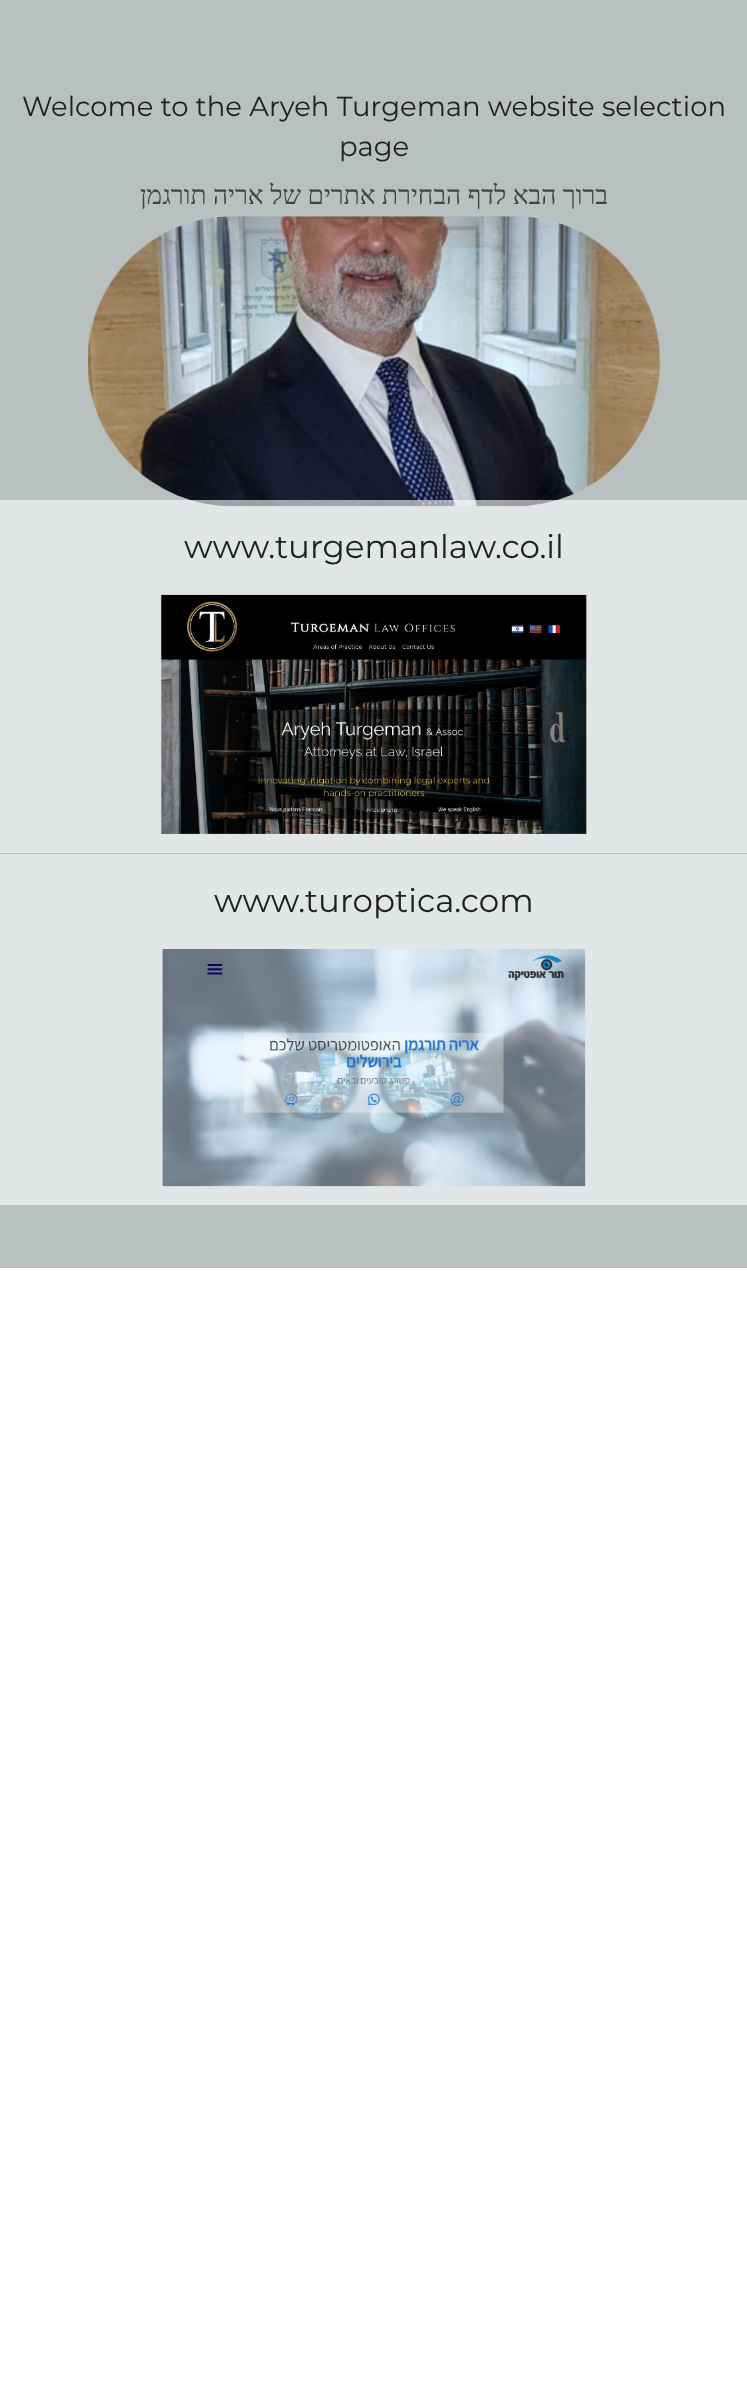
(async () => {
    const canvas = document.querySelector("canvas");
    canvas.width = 747;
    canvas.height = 2405;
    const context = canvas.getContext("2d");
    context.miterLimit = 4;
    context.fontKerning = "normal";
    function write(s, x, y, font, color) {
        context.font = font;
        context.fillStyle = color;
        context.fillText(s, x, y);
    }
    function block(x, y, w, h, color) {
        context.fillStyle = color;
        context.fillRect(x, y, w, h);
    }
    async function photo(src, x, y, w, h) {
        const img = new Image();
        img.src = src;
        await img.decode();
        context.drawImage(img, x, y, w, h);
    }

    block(0, 0, 747, 2405, "rgb(255, 255, 255)");
    block(0, 0, 747, 1268, "rgb(185, 192, 192)");
    write("Welcome to the Aryeh Turgeman website selection", 22, 116, "27.5px Montserrat", "rgb(33, 33, 33)");
    write("page", 339, 156, "27.5px Montserrat", "rgb(33, 33, 33)");
    context.direction = "rtl";
    write("ברוך הבא לדף הבחירת אתרים של אריה תורגמן", 608, 204, "26.25px Liberation Serif", "rgb(66, 66, 66)");
    await photo("media/1.png", 88, 216, 573, 291);
    block(0, 500, 747, 353, "rgba(255, 255, 255, 0.6)");
    context.direction = "ltr";
    write("www.turgemanlaw.co.il", 184, 558, "32.5px Montserrat", "rgb(33, 33, 33)");
    await photo("media/2.png", 160, 594, 427, 240);
    block(0, 854, 747, 351, "rgb(227, 230, 230)");
    write("www.turoptica.com", 214, 912, "32.5px Montserrat", "rgb(33, 33, 33)");
    await photo("media/3.png", 162, 949, 424, 238);
})();
